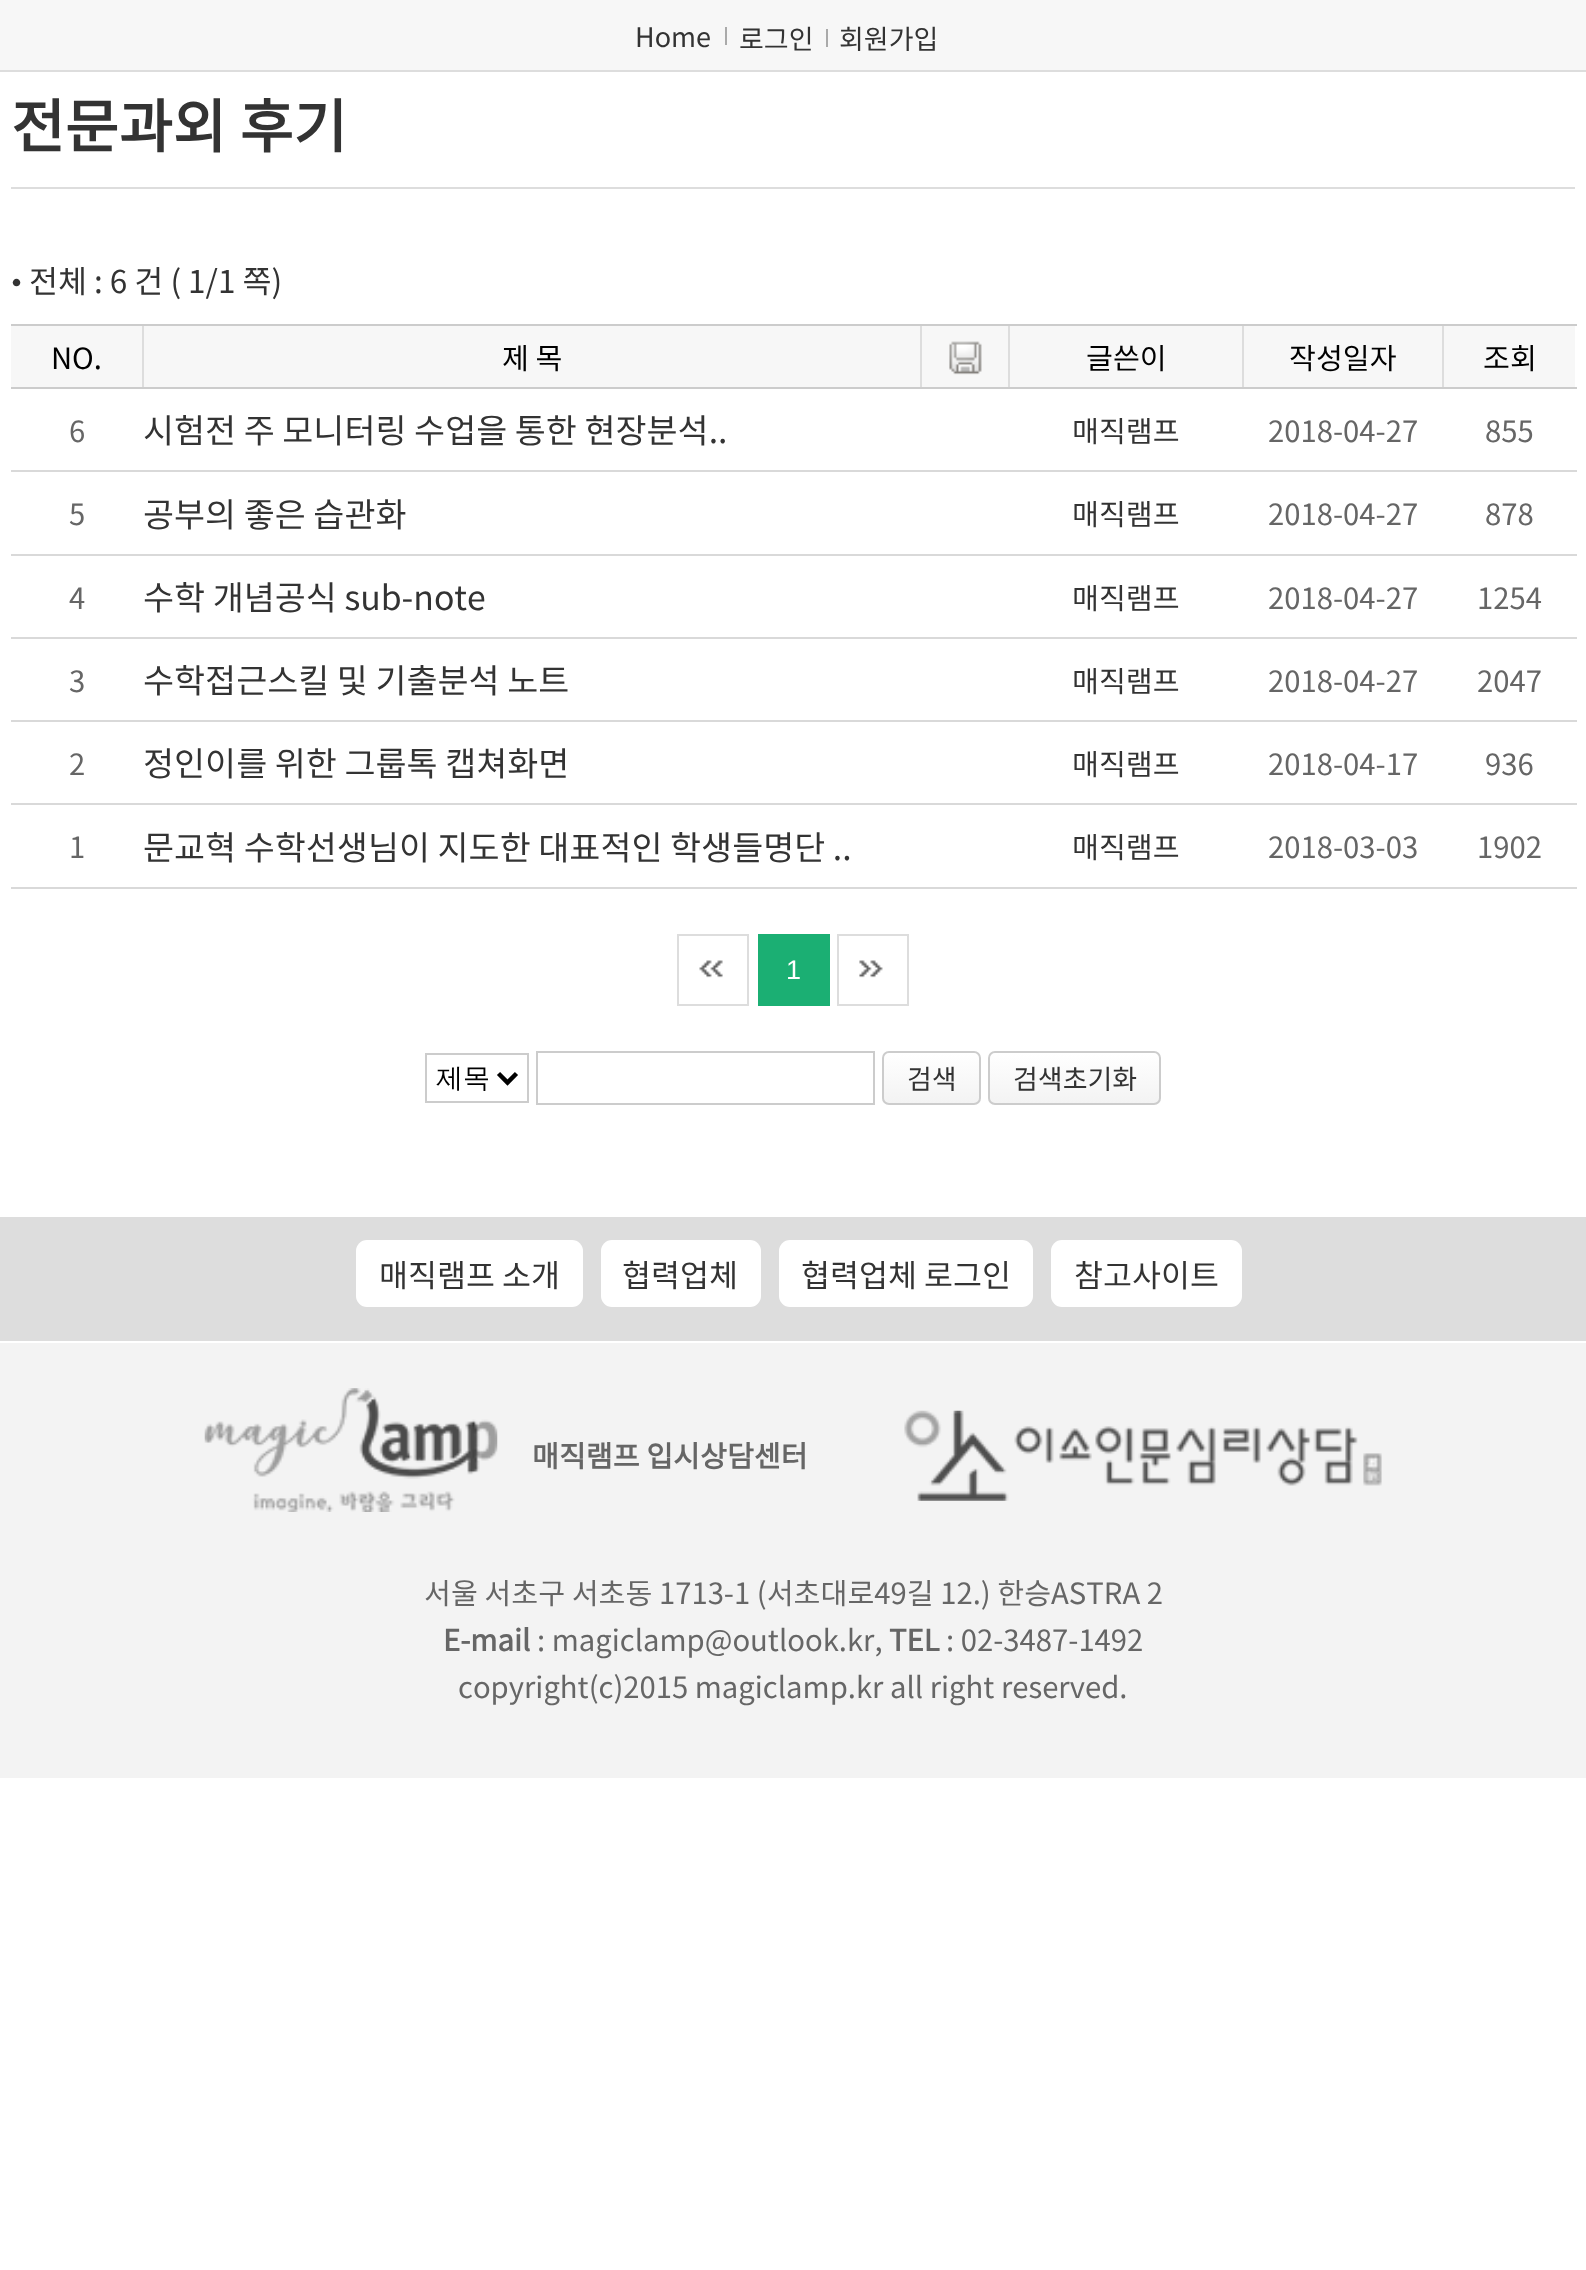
(async () => {
    const canvas = document.querySelector("canvas");
    canvas.width = 1586;
    canvas.height = 2270;
    const context = canvas.getContext("2d");
    context.miterLimit = 4;
    context.fontKerning = "normal";
    function write(s, x, y, font, color) {
        context.font = font;
        context.fillStyle = color;
        context.fillText(s, x, y);
    }
    function block(x, y, w, h, color) {
        context.fillStyle = color;
        context.fillRect(x, y, w, h);
    }
    function card(x, y, w, h, r, color) {
        context.fillStyle = color;
        context.beginPath();
        context.roundRect(x, y, w, h, r);
        context.fill();
    }
    async function photo(src, x, y, w, h) {
        const img = new Image();
        img.src = src;
        await img.decode();
        context.drawImage(img, x, y, w, h);
    }
    let gradient;

    block(0, 0, 1586, 2270, "rgb(255, 255, 255)");
    block(0, 0, 1586, 70, "rgb(247, 247, 247)");
    block(0, 70, 1586, 2, "rgb(221, 221, 221)");
    write("Home", 635, 47, "27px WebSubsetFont", "rgb(51, 51, 51)");
    block(725, 27, 2, 18, "rgb(170, 170, 170)");
    write("로그인", 739, 49, "27px WebSubsetFont", "rgb(51, 51, 51)");
    block(826, 29, 2, 18, "rgb(170, 170, 170)");
    write("회원가입", 839, 49, "27px WebSubsetFont", "rgb(51, 51, 51)");
    block(11, 187, 1564, 2, "rgb(221, 221, 221)");
    write("전문과외 후기", 11, 148, "bold 58.5px WebSubsetFont", "rgb(51, 51, 51)");
    write("•", 11, 293, "31.5px Liberation Serif", "rgb(51, 51, 51)");
    write("전체 : 6 건 ( 1/1 쪽)", 29, 293, "31.5px WebSubsetFont", "rgb(51, 51, 51)");
    block(11, 326, 131, 61, "rgb(247, 247, 247)");
    block(1442, 324, 135, 2, "rgb(204, 204, 204)");
    block(1244, 326, 331, 61, "rgb(247, 247, 247)");
    block(1442, 387, 135, 2, "rgb(204, 204, 204)");
    block(1442, 324, 2, 65, "rgb(221, 221, 221)");
    block(1242, 324, 203, 2, "rgb(204, 204, 204)");
    block(1242, 387, 203, 2, "rgb(204, 204, 204)");
    block(1242, 324, 2, 65, "rgb(221, 221, 221)");
    block(1008, 324, 236, 2, "rgb(204, 204, 204)");
    block(1008, 387, 236, 2, "rgb(204, 204, 204)");
    block(1008, 324, 2, 65, "rgb(221, 221, 221)");
    block(920, 324, 90, 2, "rgb(204, 204, 204)");
    block(144, 326, 864, 61, "rgb(247, 247, 247)");
    block(920, 387, 90, 2, "rgb(204, 204, 204)");
    block(920, 324, 2, 65, "rgb(221, 221, 221)");
    block(142, 324, 781, 2, "rgb(204, 204, 204)");
    block(142, 387, 781, 2, "rgb(204, 204, 204)");
    block(142, 324, 2, 65, "rgb(221, 221, 221)");
    block(11, 324, 133, 2, "rgb(204, 204, 204)");
    block(11, 387, 133, 2, "rgb(204, 204, 204)");
    write("NO.", 51, 369, "29.25px WebSubsetFont", "rgb(0, 0, 0)");
    write("제 목", 502, 369, "29.25px WebSubsetFont", "rgb(0, 0, 0)");
    await photo("media/1.png", 949, 341, 33, 34);
    block(1010, 326, 232, 61, "rgb(247, 247, 247)");
    write("글쓴이", 1086, 369, "29.25px WebSubsetFont", "rgb(0, 0, 0)");
    write("작성일자", 1289, 369, "29.25px WebSubsetFont", "rgb(0, 0, 0)");
    write("조회", 1483, 369, "29.25px WebSubsetFont", "rgb(0, 0, 0)");
    write("6", 69, 442, "29.25px WebSubsetFont", "rgb(102, 102, 102)");
    write("시험전 주 모니터링 수업을 통한 현장분석..", 143, 443, "33.75px WebSubsetFont", "rgb(51, 51, 51)");
    write("매직램프", 1072, 442, "29.25px WebSubsetFont", "rgb(51, 51, 51)");
    write("2018-04-27", 1268, 442, "29.25px WebSubsetFont", "rgb(102, 102, 102)");
    write("855", 1485, 442, "29.25px WebSubsetFont", "rgb(102, 102, 102)");
    write("5", 69, 525, "29.25px WebSubsetFont", "rgb(102, 102, 102)");
    write("공부의 좋은 습관화", 143, 527, "33.75px WebSubsetFont", "rgb(51, 51, 51)");
    write("매직램프", 1072, 525, "29.25px WebSubsetFont", "rgb(51, 51, 51)");
    write("2018-04-27", 1268, 525, "29.25px WebSubsetFont", "rgb(102, 102, 102)");
    block(11, 470, 1566, 2, "rgb(217, 217, 217)");
    write("878", 1485, 525, "29.25px WebSubsetFont", "rgb(102, 102, 102)");
    write("4", 69, 609, "29.25px WebSubsetFont", "rgb(102, 102, 102)");
    write("수학 개념공식 sub-note", 143, 610, "33.75px WebSubsetFont", "rgb(51, 51, 51)");
    write("매직램프", 1072, 609, "29.25px WebSubsetFont", "rgb(51, 51, 51)");
    write("2018-04-27", 1268, 609, "29.25px WebSubsetFont", "rgb(102, 102, 102)");
    block(11, 554, 1566, 2, "rgb(217, 217, 217)");
    write("1254", 1477, 609, "29.25px WebSubsetFont", "rgb(102, 102, 102)");
    write("3", 69, 692, "29.25px WebSubsetFont", "rgb(102, 102, 102)");
    write("수학접근스킬 및 기출분석 노트", 143, 693, "33.75px WebSubsetFont", "rgb(51, 51, 51)");
    write("매직램프", 1072, 692, "29.25px WebSubsetFont", "rgb(51, 51, 51)");
    write("2018-04-27", 1268, 692, "29.25px WebSubsetFont", "rgb(102, 102, 102)");
    block(11, 637, 1566, 2, "rgb(217, 217, 217)");
    write("2047", 1477, 692, "29.25px WebSubsetFont", "rgb(102, 102, 102)");
    write("2", 69, 775, "29.25px WebSubsetFont", "rgb(102, 102, 102)");
    write("정인이를 위한 그룹톡 캡쳐화면", 143, 776, "33.75px WebSubsetFont", "rgb(51, 51, 51)");
    write("매직램프", 1072, 775, "29.25px WebSubsetFont", "rgb(51, 51, 51)");
    write("2018-04-17", 1268, 775, "29.25px WebSubsetFont", "rgb(102, 102, 102)");
    block(11, 720, 1566, 2, "rgb(217, 217, 217)");
    write("936", 1485, 775, "29.25px WebSubsetFont", "rgb(102, 102, 102)");
    write("1", 69, 858, "29.25px WebSubsetFont", "rgb(102, 102, 102)");
    write("문교혁 수학선생님이 지도한 대표적인 학생들명단 ..", 143, 860, "33.75px WebSubsetFont", "rgb(51, 51, 51)");
    write("매직램프", 1072, 858, "29.25px WebSubsetFont", "rgb(51, 51, 51)");
    write("2018-03-03", 1268, 858, "29.25px WebSubsetFont", "rgb(102, 102, 102)");
    block(11, 803, 1566, 2, "rgb(217, 217, 217)");
    block(11, 887, 1566, 2, "rgb(217, 217, 217)");
    write("1902", 1477, 858, "29.25px WebSubsetFont", "rgb(102, 102, 102)");
    await photo("media/2.png", 699, 960, 24, 18);
    context.strokeStyle = "rgb(221, 221, 221)";
    context.lineWidth = 2;
    context.strokeRect(678, 935, 70, 70);
    block(758, 934, 72, 72, "rgb(27, 175, 115)");
    write("1", 786, 979, "27px Liberation Sans", "rgb(255, 255, 255)");
    await photo("media/3.png", 859, 960, 24, 18);
    context.strokeRect(838, 935, 70, 70);
    context.strokeStyle = "rgb(204, 204, 204)";
    context.strokeRect(426, 1054, 102, 48);
    context.beginPath();
    context.moveTo(498.5, 1073.5);
    context.lineTo(507.5, 1082.5);
    context.lineTo(516.5, 1073.5);
    context.strokeStyle = "rgb(0, 0, 0)";
    context.lineWidth = 4.5;
    context.stroke();
    write("제목", 436, 1087, "500 27px WenQuanYi Zen Hei", "rgb(0, 0, 0)");
    context.strokeStyle = "rgb(204, 204, 204)";
    context.lineWidth = 2;
    context.strokeRect(537, 1052, 337, 52);
    context.save();
    context.beginPath();
    context.roundRect(882, 1051, 99, 54, 7);
    context.clip();
    gradient = context.createLinearGradient(932, 1103, 932, 1053);
    gradient.addColorStop(0, "rgb(243, 243, 243)");
    gradient.addColorStop(1, "rgb(255, 255, 255)");
    context.fillStyle = gradient;
    context.fillRect(882, 1053, 99, 50);
    context.restore();
    context.beginPath();
    context.roundRect(883, 1052, 97, 52, 6);
    context.stroke();
    write("검색", 907, 1089, "27px WebSubsetFont", "rgb(51, 51, 51)");
    context.save();
    context.beginPath();
    context.roundRect(988, 1051, 173, 54, 7);
    context.clip();
    gradient = context.createLinearGradient(1074, 1103, 1074, 1053);
    gradient.addColorStop(0, "rgb(243, 243, 243)");
    gradient.addColorStop(1, "rgb(255, 255, 255)");
    context.fillStyle = gradient;
    context.fillRect(988, 1053, 173, 50);
    context.restore();
    context.beginPath();
    context.roundRect(989, 1052, 171, 52, 6);
    context.stroke();
    write("검색초기화", 1013, 1089, "27px WebSubsetFont", "rgb(51, 51, 51)");
    block(0, 1343, 1586, 435, "rgb(243, 243, 243)");
    block(0, 1217, 1586, 124, "rgb(221, 221, 221)");
    card(356, 1240, 227, 67, 11, "rgb(255, 255, 255)");
    write("매직램프 소개", 379, 1287, "31.5px WebSubsetFont", "rgb(51, 51, 51)");
    card(601, 1240, 160, 67, 11, "rgb(255, 255, 255)");
    write("협력업체", 622, 1287, "31.5px WebSubsetFont", "rgb(51, 51, 51)");
    card(779, 1240, 254, 67, 11, "rgb(255, 255, 255)");
    write("협력업체 로그인", 801, 1287, "31.5px WebSubsetFont", "rgb(51, 51, 51)");
    card(1051, 1240, 191, 67, 11, "rgb(255, 255, 255)");
    write("참고사이트", 1074, 1287, "31.5px WebSubsetFont", "rgb(51, 51, 51)");
    await photo("media/4.png", 204, 1388, 294, 124);
    write("매직램프 입시상담센터", 532, 1467, "bold 29.25px WebSubsetFont", "rgb(102, 102, 102)");
    await photo("media/5.png", 904, 1410, 478, 91);
    write("서울 서초구 서초동 1713-1 (서초대로49길 12.) 한승ASTRA 2", 424, 1604, "29.25px WebSubsetFont", "rgb(102, 102, 102)");
    write("E-mail", 443, 1651, "bold 29.25px WebSubsetFont", "rgb(102, 102, 102)");
    write(": magiclamp@outlook.kr,", 537, 1651, "29.25px WebSubsetFont", "rgb(102, 102, 102)");
    write("TEL", 889, 1651, "bold 29.25px WebSubsetFont", "rgb(102, 102, 102)");
    write(": 02-3487-1492", 946, 1651, "29.25px WebSubsetFont", "rgb(102, 102, 102)");
    write("copyright(c)2015 magiclamp.kr all right reserved.", 458, 1698, "29.25px WebSubsetFont", "rgb(102, 102, 102)");
})();
